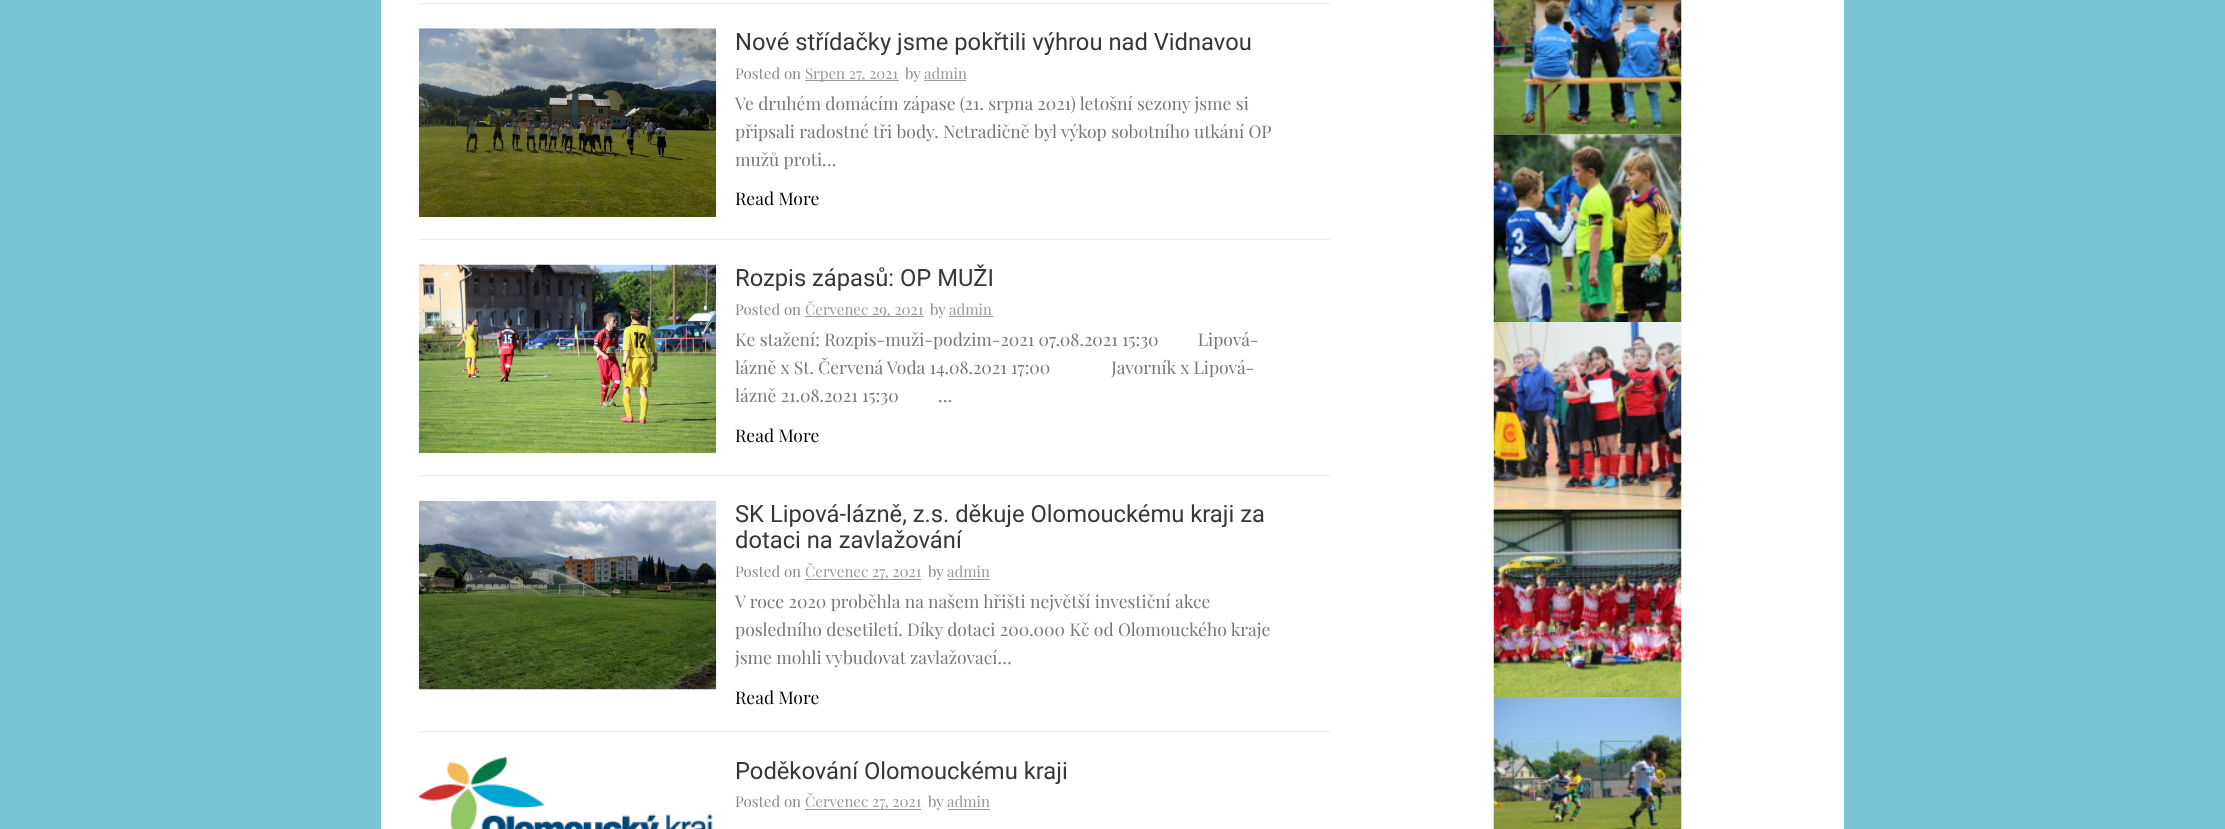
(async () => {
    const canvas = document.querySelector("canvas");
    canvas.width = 2225;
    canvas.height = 829;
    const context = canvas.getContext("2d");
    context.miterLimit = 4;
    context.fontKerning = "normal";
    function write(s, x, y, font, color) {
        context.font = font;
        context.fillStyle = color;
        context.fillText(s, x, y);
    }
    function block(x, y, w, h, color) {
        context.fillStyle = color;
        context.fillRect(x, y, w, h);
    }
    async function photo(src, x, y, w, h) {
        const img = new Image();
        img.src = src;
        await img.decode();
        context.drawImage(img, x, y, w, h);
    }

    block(0, 0, 2225, 829, "rgb(121, 197, 216)");
    block(381, 0, 1463, 829, "rgb(255, 255, 255)");
    block(419, 3, 912, 1, "rgb(238, 238, 238)");
    block(419, 239, 912, 1, "rgb(238, 238, 238)");
    await photo("media/1.png", 418, 28, 299, 189);
    write("Nové střídačky jsme pokřtili výhrou nad Vidnavou", 735, 50, "23.75px Roboto", "rgb(55, 55, 55)");
    write("Posted on", 735, 79, "15px Playfair Display", "rgb(136, 136, 136)");
    block(805, 80, 94, 1, "rgb(153, 153, 153)");
    write("Srpen 27, 2021", 805, 79, "15px Playfair Display", "rgb(153, 153, 153)");
    write("by", 905, 79, "15px Playfair Display", "rgb(136, 136, 136)");
    write("admin", 924, 79, "15px Playfair Display", "rgb(153, 153, 153)");
    block(924, 80, 42, 1, "rgb(153, 153, 153)");
    write("Ve druhém domácím zápase (21. srpna 2021) letošní sezony jsme si", 735, 110, "17.5px Playfair Display", "rgb(119, 119, 119)");
    write("připsali radostné tři body. Netradičně byl výkop sobotního utkání OP", 735, 138, "17.5px Playfair Display", "rgb(119, 119, 119)");
    write("mužů proti…", 735, 166, "17.5px Playfair Display", "rgb(119, 119, 119)");
    write("Read More", 735, 205, "17.5px Playfair Display", "rgb(0, 0, 0)");
    block(419, 475, 912, 1, "rgb(238, 238, 238)");
    await photo("media/2.png", 418, 264, 299, 190);
    write("Rozpis zápasů: OP MUŽI", 735, 286, "23.75px Roboto", "rgb(55, 55, 55)");
    write("Posted on", 735, 315, "15px Playfair Display", "rgb(136, 136, 136)");
    block(805, 316, 119, 1, "rgb(153, 153, 153)");
    write("Červenec 29, 2021", 805, 315, "15px Playfair Display", "rgb(153, 153, 153)");
    write("by", 930, 315, "15px Playfair Display", "rgb(136, 136, 136)");
    write("admin", 949, 315, "15px Playfair Display", "rgb(153, 153, 153)");
    block(949, 316, 44, 1, "rgb(153, 153, 153)");
    write("Ke stažení: Rozpis-muži-podzim-2021 07.08.2021 15:30         Lipová-", 735, 346, "17.5px Playfair Display", "rgb(119, 119, 119)");
    write("lázně x St. Červená Voda 14.08.2021 17:00              Javorník x Lipová-", 735, 374, "17.5px Playfair Display", "rgb(119, 119, 119)");
    write("lázně 21.08.2021 15:30         …", 735, 402, "17.5px Playfair Display", "rgb(119, 119, 119)");
    write("Read More", 735, 442, "17.5px Playfair Display", "rgb(0, 0, 0)");
    block(419, 731, 912, 1, "rgb(238, 238, 238)");
    await photo("media/3.png", 418, 500, 299, 190);
    write("SK Lipová-lázně, z.s. děkuje Olomouckému kraji za", 735, 522, "23.75px Roboto", "rgb(55, 55, 55)");
    write("dotaci na zavlažování", 735, 548, "23.75px Roboto", "rgb(55, 55, 55)");
    write("Posted on", 735, 577, "15px Playfair Display", "rgb(136, 136, 136)");
    block(805, 579, 116, 1, "rgb(153, 153, 153)");
    write("Červenec 27, 2021", 805, 577, "15px Playfair Display", "rgb(153, 153, 153)");
    write("by", 928, 577, "15px Playfair Display", "rgb(136, 136, 136)");
    write("admin", 947, 577, "15px Playfair Display", "rgb(153, 153, 153)");
    block(948, 579, 42, 1, "rgb(153, 153, 153)");
    write("V roce 2020 proběhla na našem hřišti největší investiční akce", 735, 608, "17.5px Playfair Display", "rgb(119, 119, 119)");
    write("posledního desetiletí. Díky dotaci 200.000 Kč od Olomouckého kraje", 735, 636, "17.5px Playfair Display", "rgb(119, 119, 119)");
    write("jsme mohli vybudovat zavlažovací…", 735, 664, "17.5px Playfair Display", "rgb(119, 119, 119)");
    write("Read More", 735, 704, "17.5px Playfair Display", "rgb(0, 0, 0)");
    await photo("media/4.png", 418, 757, 295, 72);
    write("Poděkování Olomouckému kraji", 735, 779, "23.75px Roboto", "rgb(55, 55, 55)");
    write("Posted on", 735, 807, "15px Playfair Display", "rgb(136, 136, 136)");
    block(805, 809, 116, 1, "rgb(153, 153, 153)");
    write("Červenec 27, 2021", 805, 807, "15px Playfair Display", "rgb(153, 153, 153)");
    write("by", 928, 807, "15px Playfair Display", "rgb(136, 136, 136)");
    write("admin", 947, 807, "15px Playfair Display", "rgb(153, 153, 153)");
    block(948, 809, 42, 1, "rgb(153, 153, 153)");
    await photo("media/5.png", 1493, 0, 189, 135);
    await photo("media/6.png", 1493, 134, 189, 188);
    await photo("media/7.png", 1493, 322, 189, 188);
    await photo("media/8.png", 1493, 509, 189, 188);
    await photo("media/9.png", 1493, 697, 189, 132);
})();
